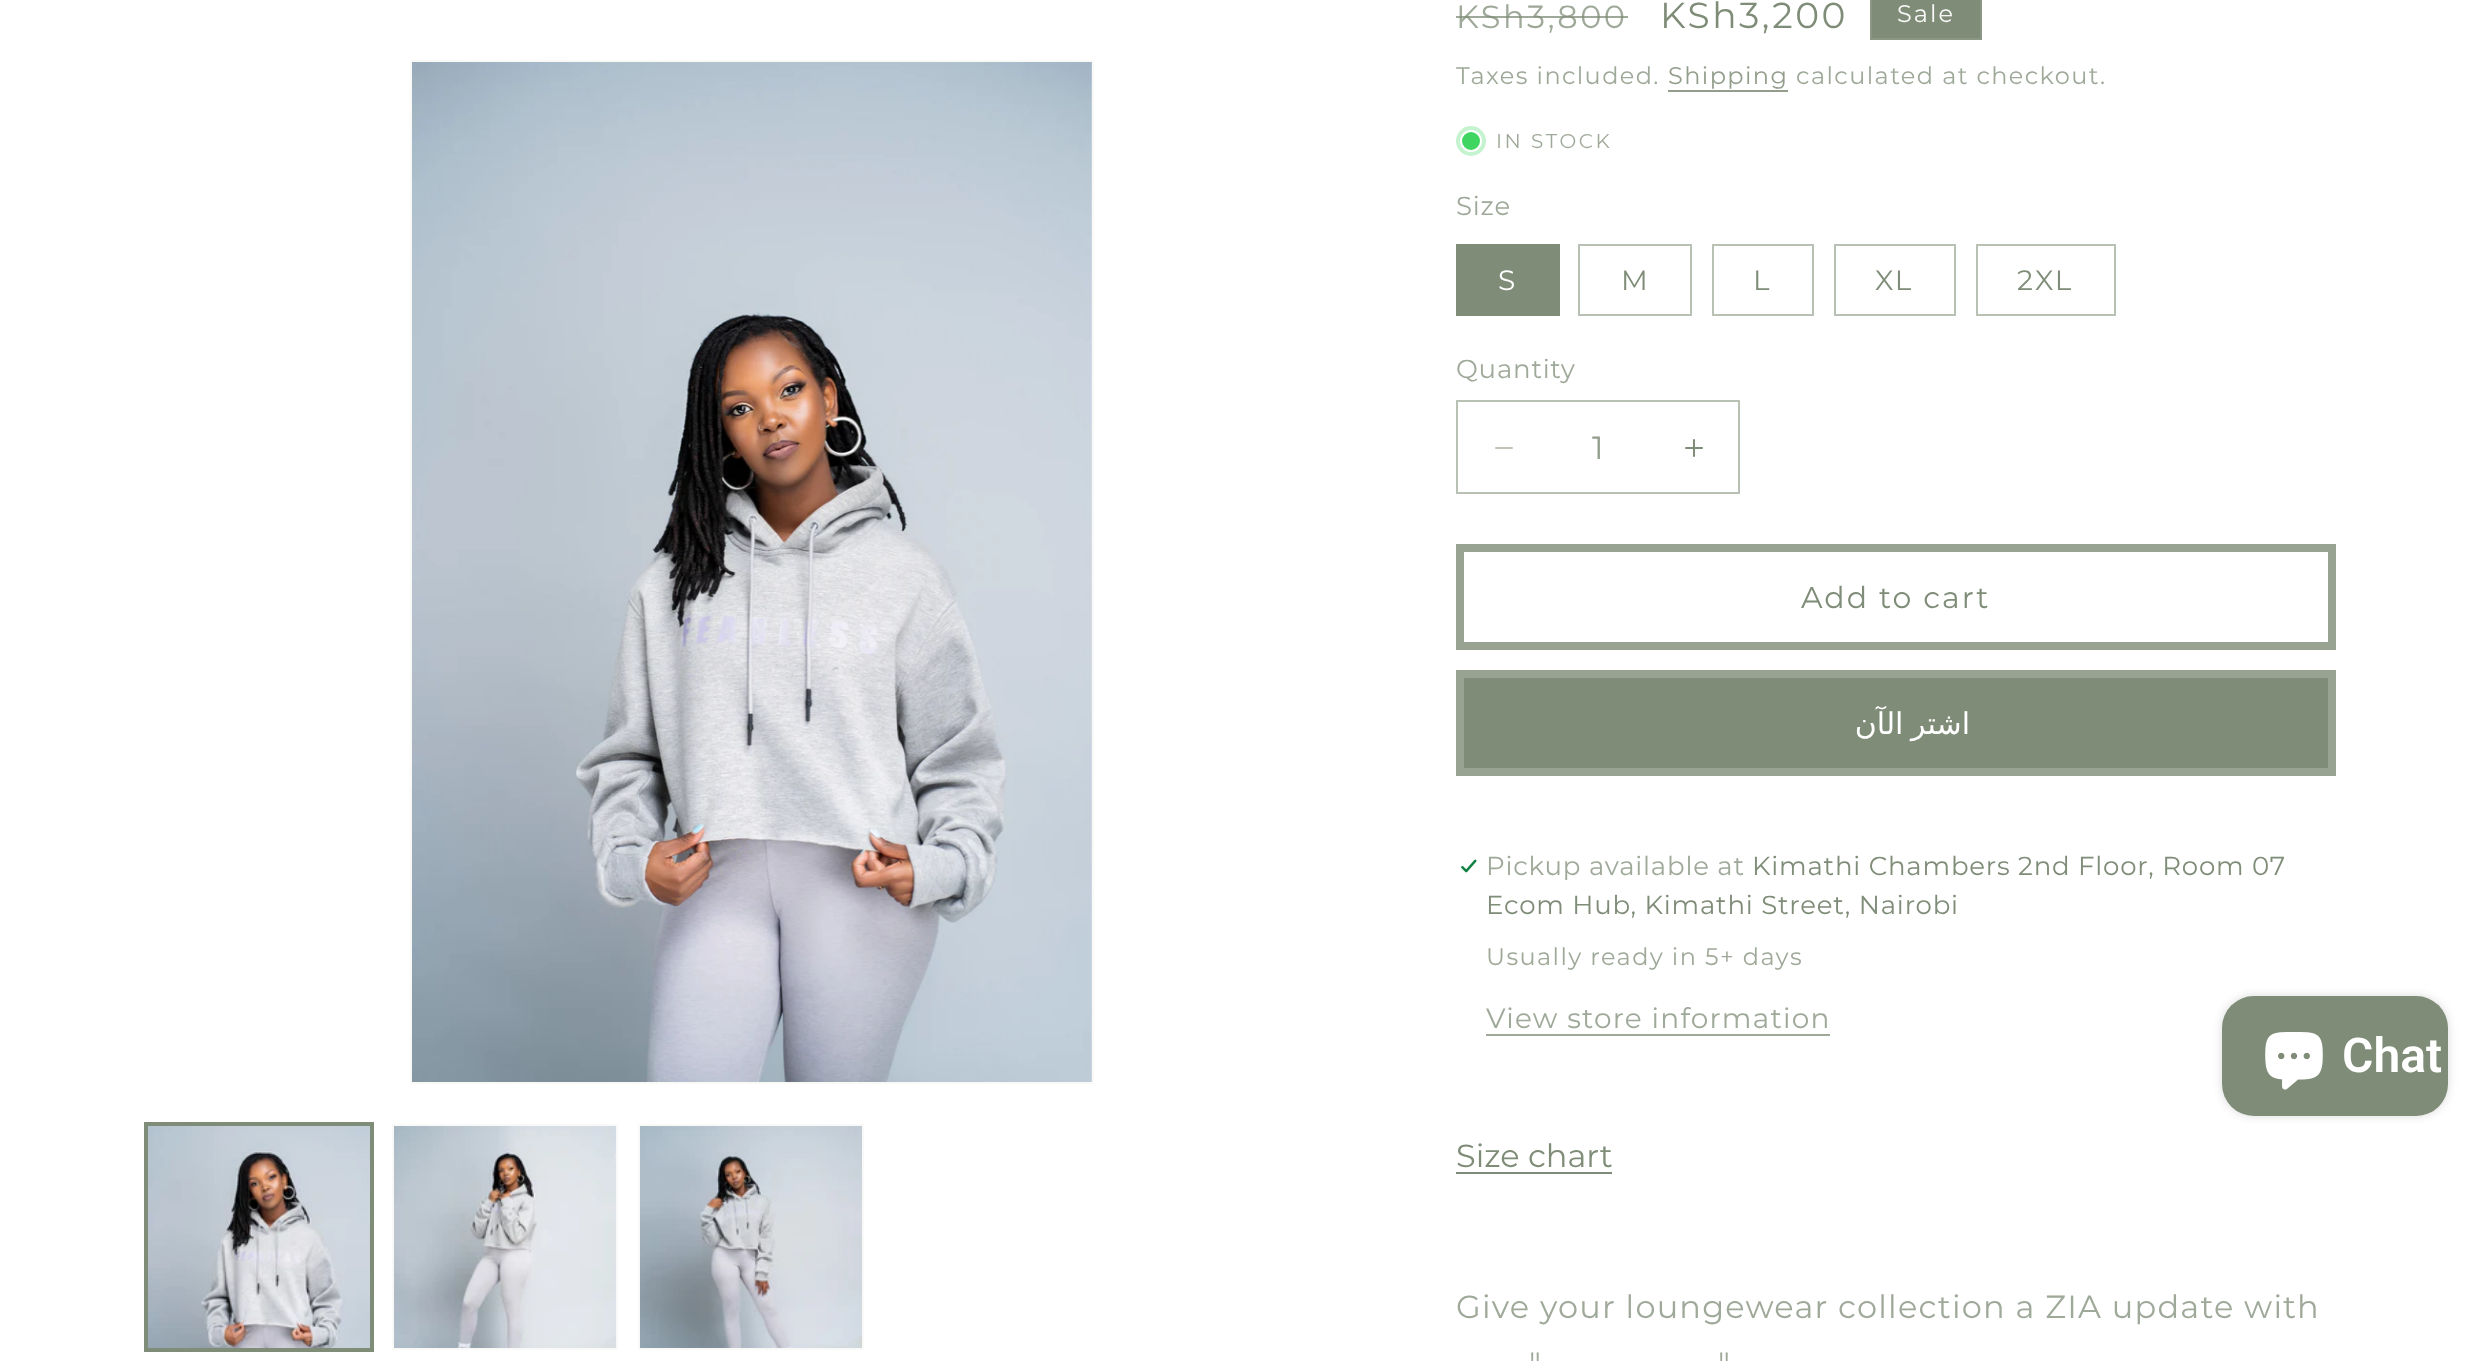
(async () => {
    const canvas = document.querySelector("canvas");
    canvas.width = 2491;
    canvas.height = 1365;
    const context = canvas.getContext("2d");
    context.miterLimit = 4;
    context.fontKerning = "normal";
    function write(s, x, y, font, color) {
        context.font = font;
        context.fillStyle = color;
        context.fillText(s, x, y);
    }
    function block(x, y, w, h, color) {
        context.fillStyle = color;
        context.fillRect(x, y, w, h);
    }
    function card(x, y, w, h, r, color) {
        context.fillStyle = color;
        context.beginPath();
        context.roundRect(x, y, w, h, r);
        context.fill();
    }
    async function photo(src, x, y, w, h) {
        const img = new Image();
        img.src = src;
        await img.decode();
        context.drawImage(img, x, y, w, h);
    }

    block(0, 0, 2491, 1365, "rgb(255, 255, 255)");
    context.strokeStyle = "rgb(249, 249, 248)";
    context.lineWidth = 2;
    context.strokeRect(411, 61, 682, 1022);
    await photo("media/1.png", 412, 62, 680, 1020);
    context.strokeStyle = "rgb(127, 140, 119)";
    context.strokeRect(145, 1123, 228, 228);
    context.strokeRect(147, 1125, 224, 224);
    await photo("media/2.png", 148, 1126, 222, 222);
    context.strokeStyle = "rgb(249, 249, 248)";
    context.strokeRect(393, 1125, 224, 224);
    await photo("media/3.png", 394, 1126, 222, 222);
    context.strokeRect(639, 1125, 224, 224);
    await photo("media/4.png", 640, 1126, 222, 222);
    context.letterSpacing = "2.5px";
    write("KSh3,800", 1456, 28, "32px Montserrat", "rgb(159, 169, 153)");
    block(1456, 16, 172, 2, "rgba(127, 140, 119, 0.75)");
    write("KSh3,200", 1660, 28, "36px Montserrat", "rgb(127, 140, 119)");
    context.beginPath();
    context.rect(1871, -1, 110, 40);
    context.fill();
    context.strokeStyle = "rgb(139, 151, 132)";
    context.stroke();
    context.letterSpacing = "2px";
    write("Sale", 1897, 22, "24px Montserrat", "rgb(249, 249, 249)");
    context.letterSpacing = "1.4px";
    write("Taxes included.", 1456, 84, "24px Montserrat", "rgb(159, 169, 153)");
    write("Shipping", 1668, 84, "24px Montserrat", "rgb(146, 157, 139)");
    block(1668, 90, 120, 2, "rgb(146, 157, 139)");
    write("calculated at checkout.", 1796, 84, "24px Montserrat", "rgb(159, 169, 153)");
    context.fillStyle = "rgb(197, 243, 207)";
    context.beginPath();
    context.arc(1471, 141, 15, 0, Math.PI * 2);
    context.fill();
    context.fillStyle = "rgb(62, 214, 96)";
    context.beginPath();
    context.arc(1471, 141, 10, 0, Math.PI * 2);
    context.fill();
    context.strokeStyle = "rgb(255, 255, 255)";
    context.stroke();
    context.letterSpacing = "2.5px";
    write("IN STOCK", 1496, 148, "20px Montserrat", "rgb(159, 169, 153)");
    context.letterSpacing = "0.8px";
    write("Size", 1456, 215, "26px Montserrat", "rgb(159, 169, 153)");
    block(1456, 244, 104, 72, "rgb(127, 140, 119)");
    context.letterSpacing = "2px";
    write("S", 1498, 290, "28px Montserrat", "rgb(255, 255, 255)");
    context.strokeStyle = "rgb(185, 192, 180)";
    context.strokeRect(1579, 245, 112, 70);
    write("M", 1621, 290, "28px Montserrat", "rgb(127, 140, 119)");
    context.strokeRect(1713, 245, 100, 70);
    write("L", 1753, 290, "28px Montserrat", "rgb(127, 140, 119)");
    context.strokeRect(1835, 245, 120, 70);
    write("XL", 1875, 290, "28px Montserrat", "rgb(127, 140, 119)");
    context.strokeRect(1977, 245, 138, 70);
    write("2XL", 2017, 290, "28px Montserrat", "rgb(127, 140, 119)");
    context.letterSpacing = "0.8px";
    write("Quantity", 1456, 378, "26px Montserrat", "rgb(159, 169, 153)");
    await photo("media/5.png", 1495, 447, 18, 2);
    await photo("media/6.png", 1685, 439, 18, 18);
    context.strokeRect(1457, 401, 282, 92);
    context.letterSpacing = "0px";
    write("1", 1592, 459, "32px Montserrat", "rgb(146, 157, 139)");
    context.strokeStyle = "rgb(153, 163, 146)";
    context.lineWidth = 8;
    context.strokeRect(1460, 548, 872, 98);
    context.letterSpacing = "2px";
    write("Add to cart", 1801, 608, "30px Montserrat", "rgb(127, 140, 119)");
    block(1464, 678, 864, 90, "rgb(127, 140, 119)");
    context.strokeRect(1460, 674, 872, 98);
    context.wordSpacing = "-4px";
    context.direction = "rtl";
    write("اشتر الآن", 1970, 734, "30px DejaVu Sans", "rgb(255, 255, 255)");
    await photo("media/7.png", 1460, 859, 18, 14);
    context.letterSpacing = "0.8px";
    context.wordSpacing = "0px";
    context.direction = "ltr";
    write("Pickup available at", 1486, 875, "26px Montserrat", "rgb(159, 169, 153)");
    write("Kimathi Chambers 2nd Floor, Room 07", 1752, 875, "26px Montserrat", "rgb(127, 140, 119)");
    write("Ecom Hub, Kimathi Street, Nairobi", 1486, 914, "26px Montserrat", "rgb(127, 140, 119)");
    context.letterSpacing = "1.4px";
    write("Usually ready in 5+ days", 1486, 965, "24px Montserrat", "rgb(159, 169, 153)");
    context.letterSpacing = "1.2px";
    write("View store information", 1486, 1028, "28px Montserrat", "rgb(159, 169, 153)");
    block(1486, 1034, 344, 2, "rgb(159, 169, 153)");
    context.letterSpacing = "0px";
    write("Size chart", 1456, 1167, "32px Montserrat", "rgb(127, 140, 119)");
    block(1456, 1172, 156, 2, "rgb(127, 140, 119)");
    context.letterSpacing = "1.2px";
    write("Give your loungewear collection a ZIA update with", 1456, 1318, "32px Montserrat", "rgb(159, 169, 153)");
    write("\"", 1529, 1375, "32px Montserrat", "rgb(159, 169, 153)");
    write("\"", 1718, 1375, "32px Montserrat", "rgb(159, 169, 153)");
    context.fillStyle = "rgba(0, 0, 0, 0.15)";
    context.filter = "blur(5px)";
    context.beginPath();
    context.roundRect(2222, 996, 226, 120, 32);
    context.fill();
    context.filter = "none";
    card(2222, 996, 226, 120, 32, "rgb(127, 140, 119)");
    await photo("media/8.png", 2265, 1032, 58, 58);
    context.letterSpacing = "0px";
    write("Chat", 2342, 1072, "600 48px Roboto", "rgb(255, 255, 255)");
})();
